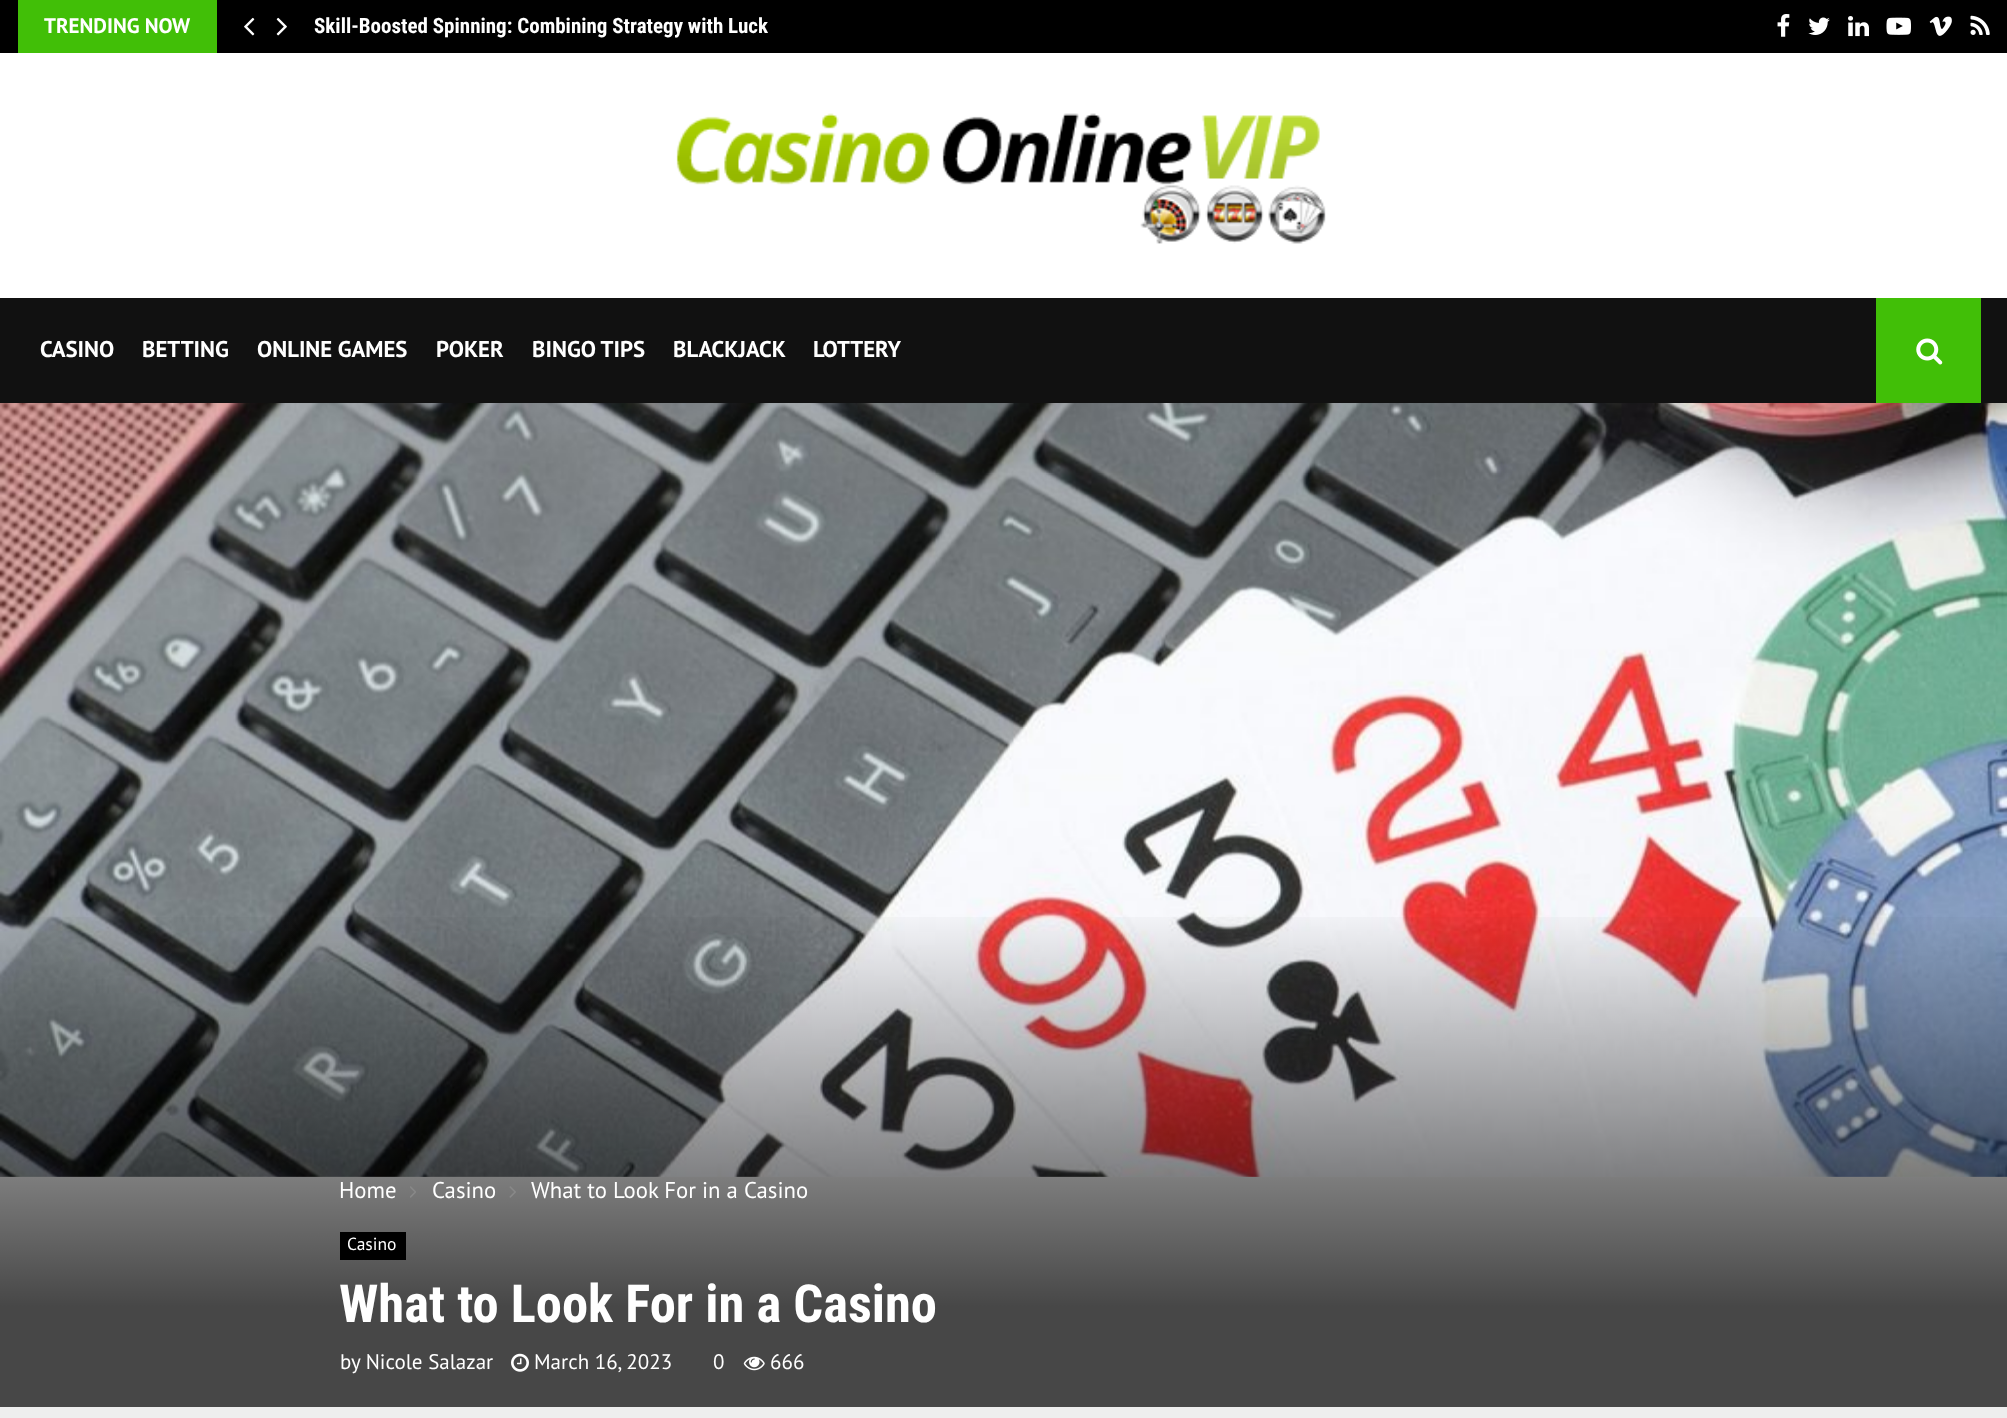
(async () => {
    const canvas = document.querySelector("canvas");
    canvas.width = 2007;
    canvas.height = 1418;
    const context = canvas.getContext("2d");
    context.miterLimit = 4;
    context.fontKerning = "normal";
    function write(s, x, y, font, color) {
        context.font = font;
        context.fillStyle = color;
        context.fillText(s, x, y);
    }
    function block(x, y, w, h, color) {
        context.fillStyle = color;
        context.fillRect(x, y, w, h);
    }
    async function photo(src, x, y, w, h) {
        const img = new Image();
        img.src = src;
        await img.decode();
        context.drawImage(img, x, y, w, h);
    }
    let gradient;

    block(0, 0, 2007, 1418, "rgb(238, 238, 238)");
    block(0, 0, 2007, 53, "rgb(0, 0, 0)");
    block(18, 0, 199, 53, "rgb(65, 191, 7)");
    write("TRENDING NOW", 44, 33, "bold 21px PT Sans", "rgb(255, 255, 255)");
    await photo("media/1.png", 244, 17, 11, 19);
    await photo("media/2.png", 276, 17, 11, 19);
    write("Skill-Boosted Spinning: Combining Strategy with Luck", 314, 33, "bold 21px Roboto Condensed", "rgb(255, 255, 255)");
    await photo("media/3.png", 1777, 14, 13, 23);
    await photo("media/4.png", 1808, 17, 22, 18);
    await photo("media/5.png", 1848, 16, 21, 21);
    await photo("media/6.png", 1886, 17, 25, 18);
    await photo("media/7.png", 1929, 16, 23, 20);
    await photo("media/8.png", 1970, 15, 20, 20);
    block(0, 53, 2007, 245, "rgb(255, 255, 255)");
    await photo("media/9.png", 676, 113, 650, 131);
    block(0, 298, 2007, 105, "rgb(17, 17, 17)");
    write("CASINO", 40, 357, "bold 22.75px PT Sans", "rgb(255, 255, 255)");
    write("BETTING", 142, 357, "bold 22.75px PT Sans", "rgb(255, 255, 255)");
    write("ONLINE GAMES", 257, 357, "bold 22.75px PT Sans", "rgb(255, 255, 255)");
    write("POKER", 436, 357, "bold 22.75px PT Sans", "rgb(255, 255, 255)");
    write("BINGO TIPS", 532, 357, "bold 22.75px PT Sans", "rgb(255, 255, 255)");
    write("BLACKJACK", 673, 357, "bold 22.75px PT Sans", "rgb(255, 255, 255)");
    write("LOTTERY", 813, 357, "bold 22.75px PT Sans", "rgb(255, 255, 255)");
    block(1876, 298, 105, 105, "rgb(65, 191, 7)");
    await photo("media/10.png", 1916, 338, 27, 27);
    await photo("media/11.png", 0, 403, 2007, 774);
    gradient = context.createLinearGradient(1004, 402, 1004, 1407);
    gradient.addColorStop(0.5, "rgba(0, 0, 0, 0)");
    gradient.addColorStop(0.9, "rgba(0, 0, 0, 0.7)");
    context.fillStyle = gradient;
    context.fillRect(0, 917, 2007, 490);
    write("Home", 339, 1198, "22.75px PT Sans", "rgb(255, 255, 255)");
    await photo("media/12.png", 410, 1186, 6, 12);
    write("Casino", 432, 1198, "22.75px PT Sans", "rgb(255, 255, 255)");
    await photo("media/13.png", 509, 1186, 7, 12);
    write("What to Look For in a Casino", 531, 1198, "22.75px PT Sans", "rgb(255, 255, 255)");
    block(340, 1232, 66, 28, "rgb(0, 0, 0)");
    write("Casino", 347, 1250, "17.5px PT Sans", "rgb(255, 255, 255)");
    write("What to Look For in a Casino", 339, 1322, "bold 52.5px Roboto Condensed", "rgb(255, 255, 255)");
    write("by Nicole Salazar", 340, 1369, "21px PT Sans", "rgb(255, 255, 255)");
    await photo("media/14.png", 511, 1353, 18, 19);
    write("March 16, 2023", 534, 1369, "21px PT Sans", "rgb(255, 255, 255)");
    write("0", 713, 1369, "21px PT Sans", "rgb(255, 255, 255)");
    await photo("media/15.png", 743, 1356, 22, 15);
    write("666", 770, 1369, "21px PT Sans", "rgb(255, 255, 255)");
})();
